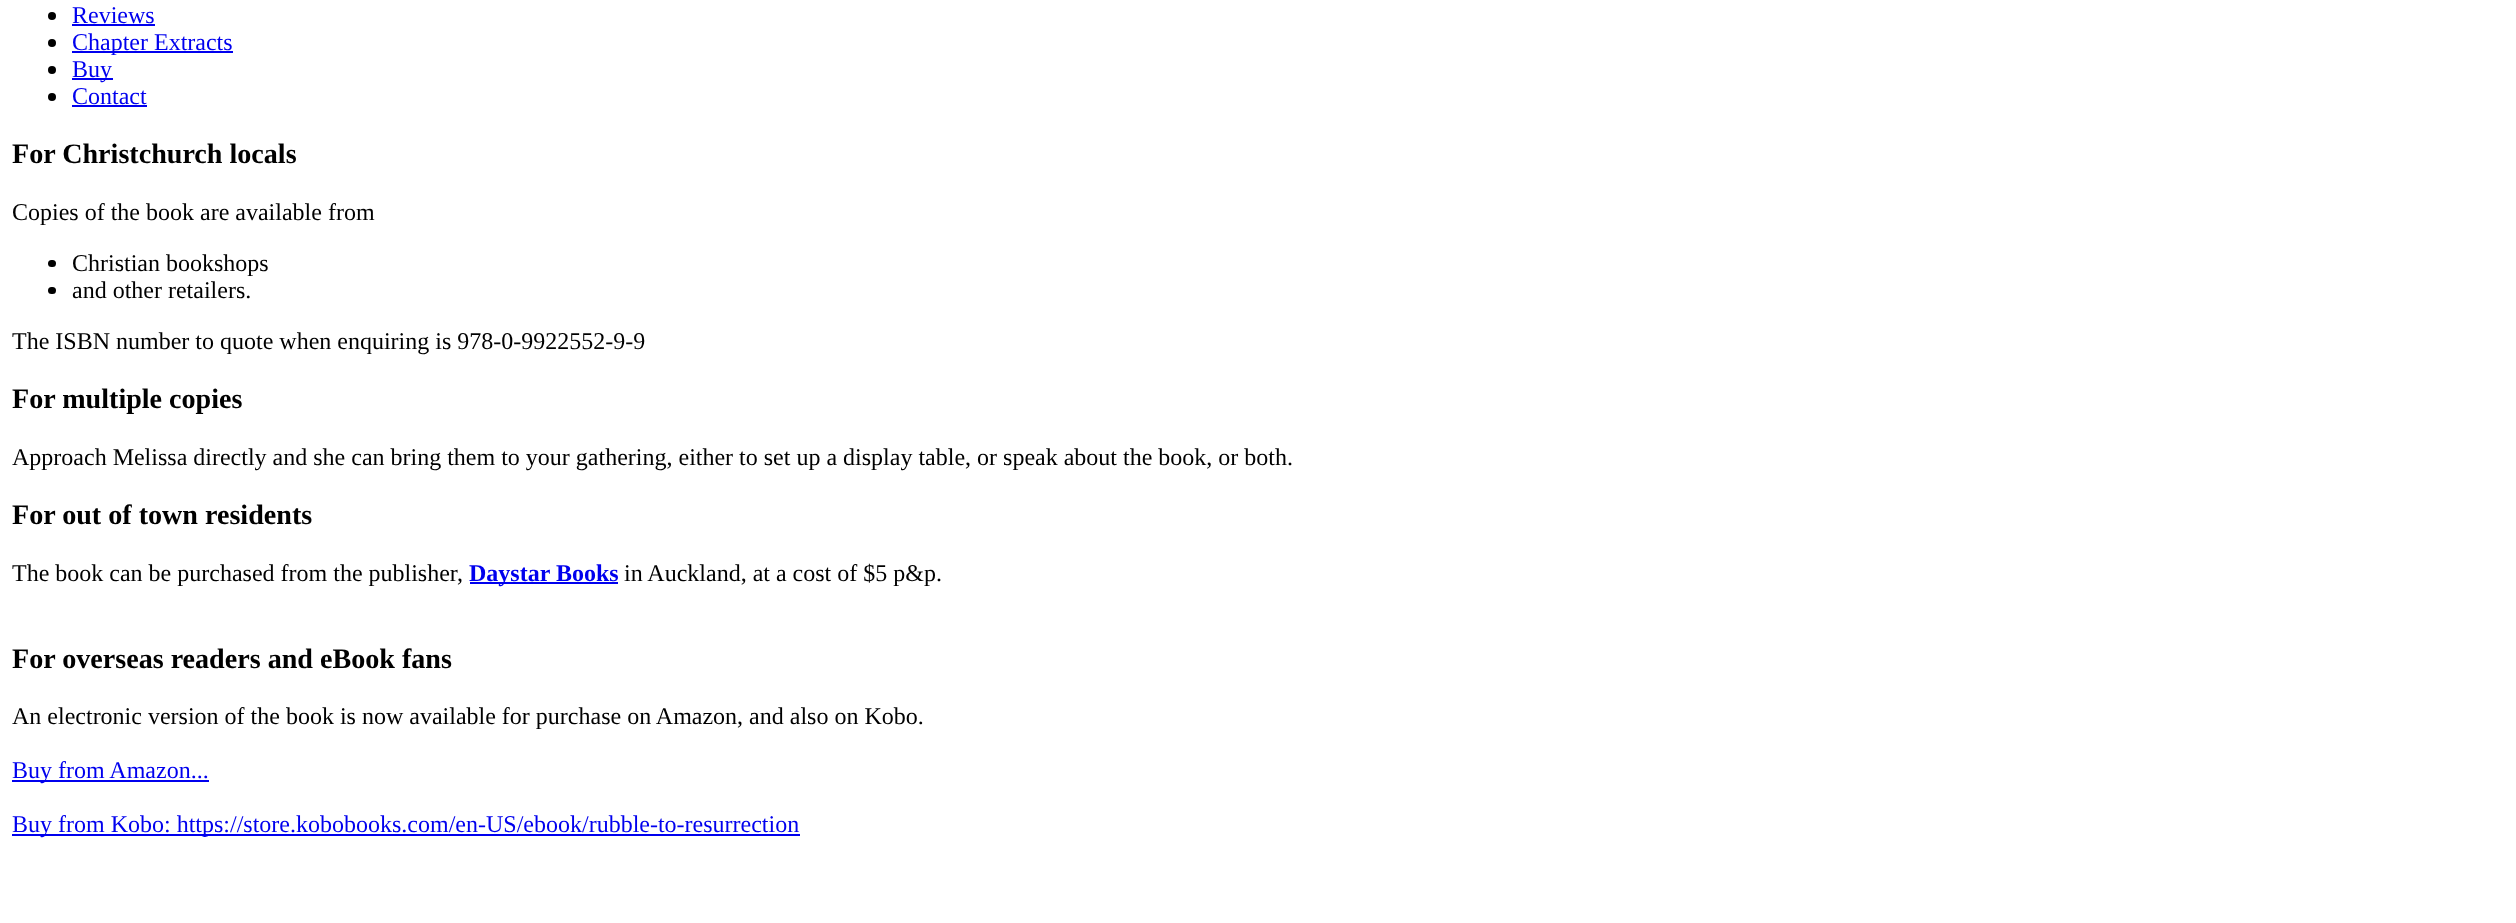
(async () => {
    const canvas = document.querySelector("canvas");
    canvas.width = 2516;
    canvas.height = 923;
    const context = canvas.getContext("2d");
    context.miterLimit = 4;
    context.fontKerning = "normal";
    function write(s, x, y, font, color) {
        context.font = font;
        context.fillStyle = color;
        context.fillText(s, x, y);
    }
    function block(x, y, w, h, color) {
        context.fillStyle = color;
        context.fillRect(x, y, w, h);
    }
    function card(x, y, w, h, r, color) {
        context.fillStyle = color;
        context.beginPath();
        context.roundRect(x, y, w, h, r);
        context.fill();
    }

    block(0, 0, 2516, 923, "rgb(255, 255, 255)");
    context.fillStyle = "rgb(0, 0, 0)";
    context.beginPath();
    context.arc(52, 16, 4, 0, Math.PI * 2);
    context.fill();
    write("Reviews", 72, 23, "24px Liberation Serif", "rgb(0, 0, 238)");
    block(72, 24, 83, 2, "rgb(0, 0, 238)");
    context.fillStyle = "rgb(0, 0, 0)";
    context.beginPath();
    context.arc(52, 43, 4, 0, Math.PI * 2);
    context.fill();
    block(72, 51, 161, 2, "rgb(0, 0, 238)");
    write("Chapter Extracts", 72, 50, "24px Liberation Serif", "rgb(0, 0, 238)");
    context.fillStyle = "rgb(0, 0, 0)";
    context.beginPath();
    context.arc(52, 70, 4, 0, Math.PI * 2);
    context.fill();
    block(72, 78, 41, 2, "rgb(0, 0, 238)");
    write("Buy", 72, 77, "24px Liberation Serif", "rgb(0, 0, 238)");
    context.fillStyle = "rgb(0, 0, 0)";
    context.beginPath();
    context.arc(52, 97, 4, 0, Math.PI * 2);
    context.fill();
    write("Contact", 72, 104, "24px Liberation Serif", "rgb(0, 0, 238)");
    block(72, 105, 75, 2, "rgb(0, 0, 238)");
    write("For Christchurch locals", 12, 163, "bold 28.1px Liberation Serif", "rgb(0, 0, 0)");
    write("Copies of the book are available from", 12, 220, "24px Liberation Serif", "rgb(0, 0, 0)");
    card(48, 260, 8, 7, 3.5, "rgb(0, 0, 0)");
    write("Christian bookshops", 72, 271, "24px Liberation Serif", "rgb(0, 0, 0)");
    card(48, 287, 8, 7, 3.5, "rgb(0, 0, 0)");
    write("and other retailers.", 72, 298, "24px Liberation Serif", "rgb(0, 0, 0)");
    write("The ISBN number to quote when enquiring is 978-0-9922552-9-9", 12, 349, "24px Liberation Serif", "rgb(0, 0, 0)");
    write("For multiple copies", 12, 408, "bold 28.1px Liberation Serif", "rgb(0, 0, 0)");
    write("Approach Melissa directly and she can bring them to your gathering, either to set up a display table, or speak about the book, or both.", 12, 465, "24px Liberation Serif", "rgb(0, 0, 0)");
    write("For out of town residents", 12, 524, "bold 28.1px Liberation Serif", "rgb(0, 0, 0)");
    write("The book can be purchased from the publisher,", 12, 581, "24px Liberation Serif", "rgb(0, 0, 0)");
    block(470, 582, 148, 2, "rgb(0, 0, 238)");
    write("Daystar Books", 469, 581, "bold 24px Liberation Serif", "rgb(0, 0, 238)");
    write("in Auckland, at a cost of $5 p&p.", 624, 581, "24px Liberation Serif", "rgb(0, 0, 0)");
    write("For overseas readers and eBook fans", 12, 668, "bold 28.1px Liberation Serif", "rgb(0, 0, 0)");
    write("An electronic version of the book is now available for purchase on Amazon, and also on Kobo.", 12, 724, "24px Liberation Serif", "rgb(0, 0, 0)");
    block(12, 780, 197, 2, "rgb(0, 0, 238)");
    write("Buy from Amazon...", 12, 778, "24px Liberation Serif", "rgb(0, 0, 238)");
    block(12, 834, 788, 2, "rgb(0, 0, 238)");
    write("Buy from Kobo: https://store.kobobooks.com/en-US/ebook/rubble-to-resurrection", 12, 832, "24px Liberation Serif", "rgb(0, 0, 238)");
})();
